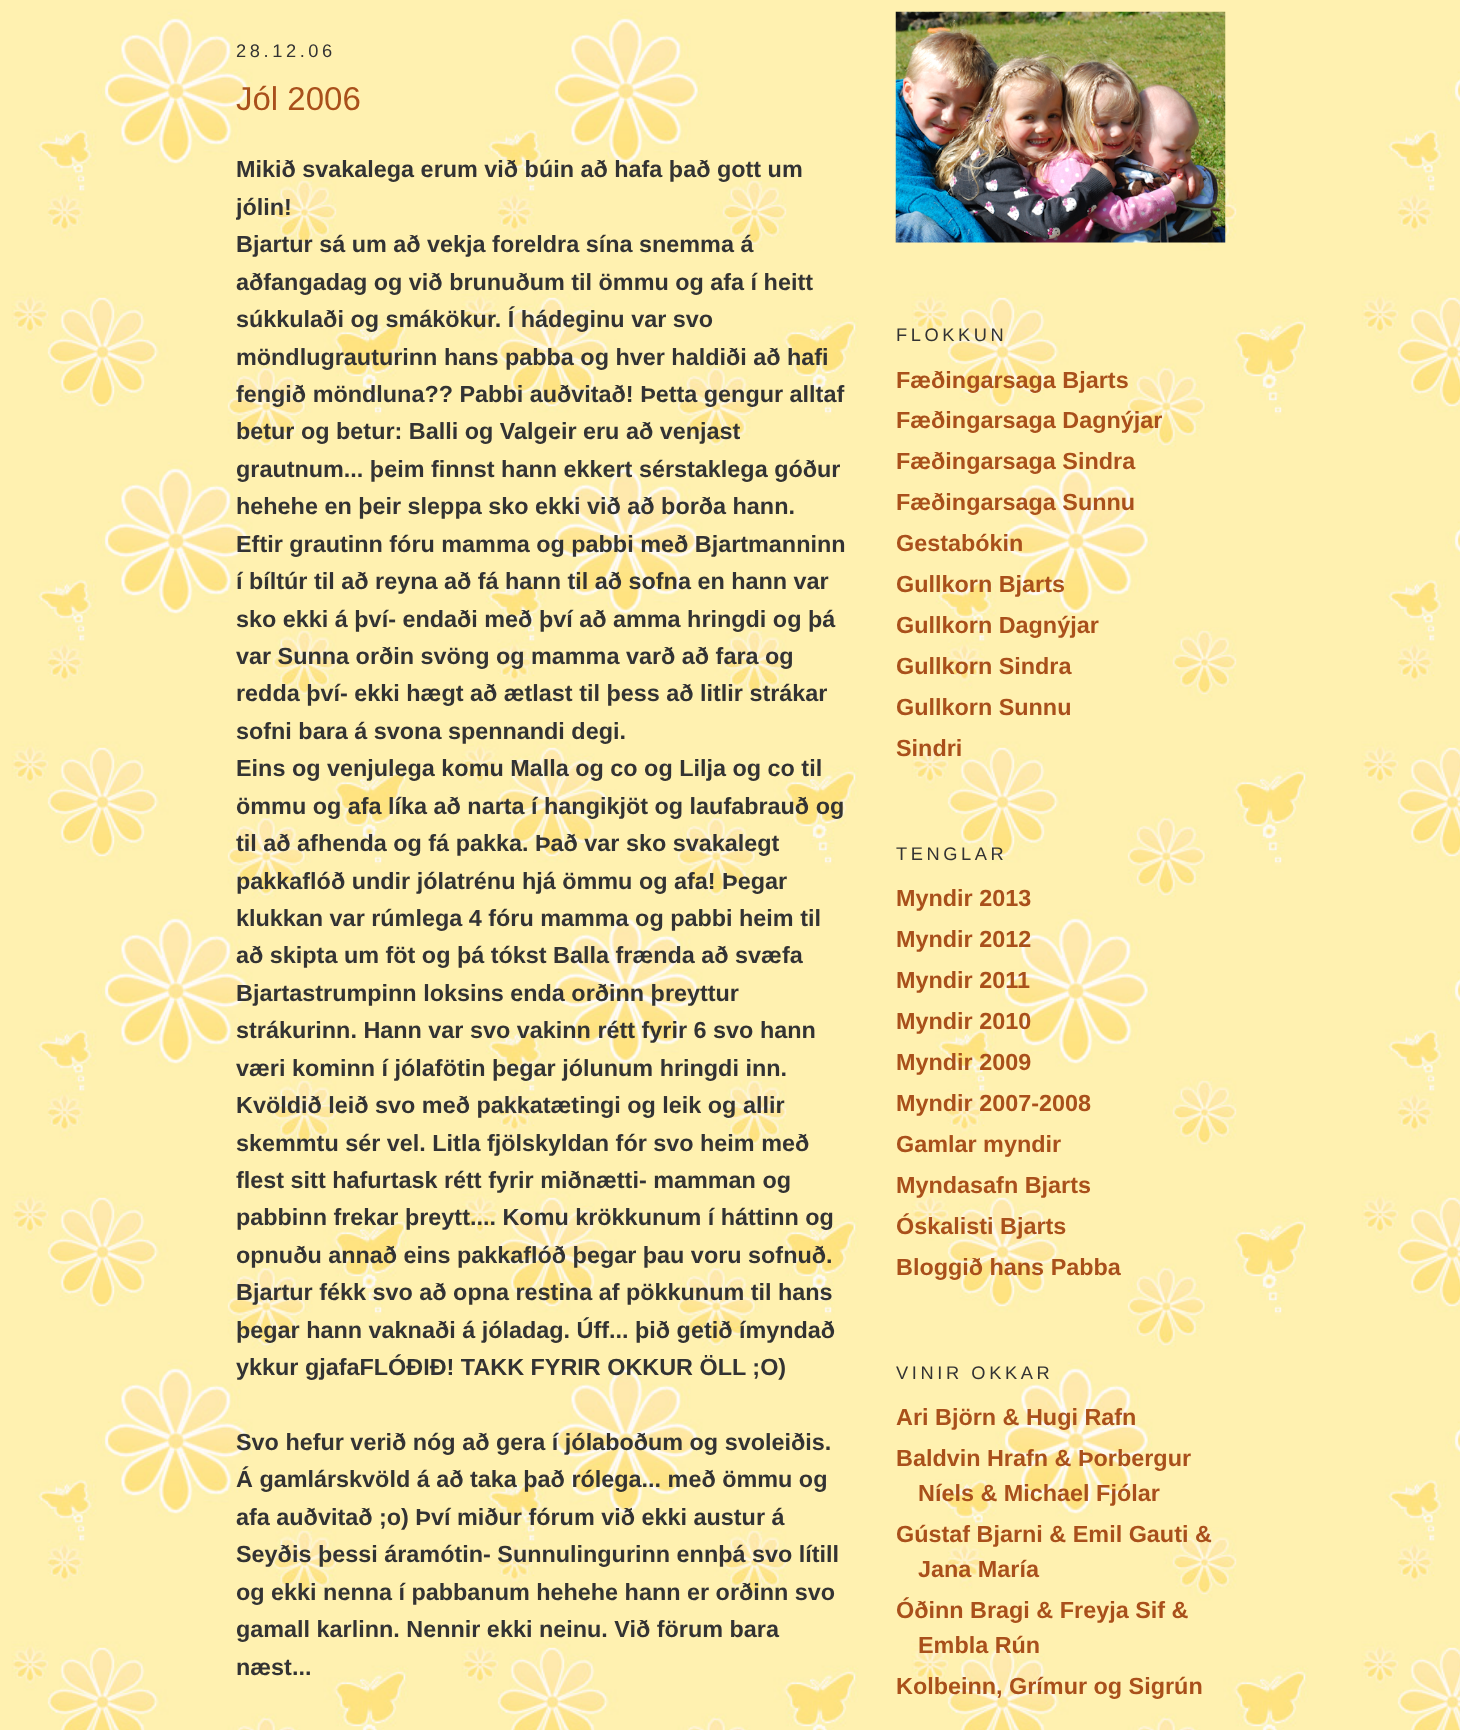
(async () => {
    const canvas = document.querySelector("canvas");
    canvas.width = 1460;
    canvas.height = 1730;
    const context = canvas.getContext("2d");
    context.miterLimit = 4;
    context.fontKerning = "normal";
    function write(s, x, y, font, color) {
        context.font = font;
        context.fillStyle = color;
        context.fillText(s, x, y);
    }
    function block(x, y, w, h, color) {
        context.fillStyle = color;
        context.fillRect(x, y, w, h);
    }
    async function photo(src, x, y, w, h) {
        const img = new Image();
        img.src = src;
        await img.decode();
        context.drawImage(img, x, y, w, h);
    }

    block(0, 0, 1460, 1730, "rgb(255, 255, 255)");
    await photo("media/1.png", 0, 0, 1460, 1730);
    context.letterSpacing = "3.6px";
    write("28.12.06", 236, 57, "18.25px Liberation Sans", "rgb(51, 51, 51)");
    context.letterSpacing = "0px";
    write("Jól 2006", 236, 110, "33px Liberation Sans", "rgb(169, 80, 27)");
    write("Mikið svakalega erum við búin að hafa það gott um", 236, 177, "bold 23.4px Liberation Sans", "rgb(51, 51, 51)");
    context.save();
    context.beginPath();
    context.rect(236, 12, 615, 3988);
    context.clip();
    write("jólin!", 236, 215, "bold 23.4px Liberation Sans", "rgb(51, 51, 51)");
    context.restore();
    write("Bjartur sá um að vekja foreldra sína snemma á", 236, 252, "bold 23.4px Liberation Sans", "rgb(51, 51, 51)");
    write("aðfangadag og við brunuðum til ömmu og afa í heitt", 236, 290, "bold 23.4px Liberation Sans", "rgb(51, 51, 51)");
    write("súkkulaði og smákökur. Í hádeginu var svo", 236, 327, "bold 23.4px Liberation Sans", "rgb(51, 51, 51)");
    write("möndlugrauturinn hans pabba og hver haldiði að hafi", 236, 365, "bold 23.4px Liberation Sans", "rgb(51, 51, 51)");
    write("fengið möndluna?? Pabbi auðvitað! Þetta gengur alltaf", 236, 402, "bold 23.4px Liberation Sans", "rgb(51, 51, 51)");
    write("betur og betur: Balli og Valgeir eru að venjast", 236, 439, "bold 23.4px Liberation Sans", "rgb(51, 51, 51)");
    write("grautnum... þeim finnst hann ekkert sérstaklega góður", 236, 477, "bold 23.4px Liberation Sans", "rgb(51, 51, 51)");
    write("hehehe en þeir sleppa sko ekki við að borða hann.", 236, 514, "bold 23.4px Liberation Sans", "rgb(51, 51, 51)");
    write("Eftir grautinn fóru mamma og pabbi með Bjartmanninn", 236, 552, "bold 23.4px Liberation Sans", "rgb(51, 51, 51)");
    write("í bíltúr til að reyna að fá hann til að sofna en hann var", 236, 589, "bold 23.4px Liberation Sans", "rgb(51, 51, 51)");
    write("sko ekki á því- endaði með því að amma hringdi og þá", 236, 627, "bold 23.4px Liberation Sans", "rgb(51, 51, 51)");
    write("var Sunna orðin svöng og mamma varð að fara og", 236, 664, "bold 23.4px Liberation Sans", "rgb(51, 51, 51)");
    write("redda því- ekki hægt að ætlast til þess að litlir strákar", 236, 701, "bold 23.4px Liberation Sans", "rgb(51, 51, 51)");
    write("sofni bara á svona spennandi degi.", 236, 739, "bold 23.4px Liberation Sans", "rgb(51, 51, 51)");
    write("Eins og venjulega komu Malla og co og Lilja og co til", 236, 776, "bold 23.4px Liberation Sans", "rgb(51, 51, 51)");
    write("ömmu og afa líka að narta í hangikjöt og laufabrauð og", 236, 814, "bold 23.4px Liberation Sans", "rgb(51, 51, 51)");
    context.save();
    context.beginPath();
    context.rect(236, 12, 615, 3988);
    context.clip();
    write("til að afhenda og fá pakka. Það var sko svakalegt", 236, 851, "bold 23.4px Liberation Sans", "rgb(51, 51, 51)");
    context.restore();
    write("pakkaflóð undir jólatrénu hjá ömmu og afa! Þegar", 236, 889, "bold 23.4px Liberation Sans", "rgb(51, 51, 51)");
    write("klukkan var rúmlega 4 fóru mamma og pabbi heim til", 236, 926, "bold 23.4px Liberation Sans", "rgb(51, 51, 51)");
    write("að skipta um föt og þá tókst Balla frænda að svæfa", 236, 963, "bold 23.4px Liberation Sans", "rgb(51, 51, 51)");
    write("Bjartastrumpinn loksins enda orðinn þreyttur", 236, 1001, "bold 23.4px Liberation Sans", "rgb(51, 51, 51)");
    write("strákurinn. Hann var svo vakinn rétt fyrir 6 svo hann", 236, 1038, "bold 23.4px Liberation Sans", "rgb(51, 51, 51)");
    write("væri kominn í jólafötin þegar jólunum hringdi inn.", 236, 1076, "bold 23.4px Liberation Sans", "rgb(51, 51, 51)");
    write("Kvöldið leið svo með pakkatætingi og leik og allir", 236, 1113, "bold 23.4px Liberation Sans", "rgb(51, 51, 51)");
    write("skemmtu sér vel. Litla fjölskyldan fór svo heim með", 236, 1151, "bold 23.4px Liberation Sans", "rgb(51, 51, 51)");
    write("flest sitt hafurtask rétt fyrir miðnætti- mamman og", 236, 1188, "bold 23.4px Liberation Sans", "rgb(51, 51, 51)");
    write("pabbinn frekar þreytt.... Komu krökkunum í háttinn og", 236, 1225, "bold 23.4px Liberation Sans", "rgb(51, 51, 51)");
    write("opnuðu annað eins pakkaflóð þegar þau voru sofnuð.", 236, 1263, "bold 23.4px Liberation Sans", "rgb(51, 51, 51)");
    write("Bjartur fékk svo að opna restina af pökkunum til hans", 236, 1300, "bold 23.4px Liberation Sans", "rgb(51, 51, 51)");
    write("þegar hann vaknaði á jóladag. Úff... þið getið ímyndað", 236, 1338, "bold 23.4px Liberation Sans", "rgb(51, 51, 51)");
    write("ykkur gjafaFLÓÐIÐ! TAKK FYRIR OKKUR ÖLL ;O)", 236, 1375, "bold 23.4px Liberation Sans", "rgb(51, 51, 51)");
    write("Svo hefur verið nóg að gera í jólaboðum og svoleiðis.", 236, 1450, "bold 23.4px Liberation Sans", "rgb(51, 51, 51)");
    write("Á gamlárskvöld á að taka það rólega... með ömmu og", 236, 1487, "bold 23.4px Liberation Sans", "rgb(51, 51, 51)");
    write("afa auðvitað ;o) Því miður fórum við ekki austur á", 236, 1525, "bold 23.4px Liberation Sans", "rgb(51, 51, 51)");
    write("Seyðis þessi áramótin- Sunnulingurinn ennþá svo lítill", 236, 1562, "bold 23.4px Liberation Sans", "rgb(51, 51, 51)");
    write("og ekki nenna í pabbanum hehehe hann er orðinn svo", 236, 1600, "bold 23.4px Liberation Sans", "rgb(51, 51, 51)");
    write("gamall karlinn. Nennir ekki neinu. Við förum bara", 236, 1637, "bold 23.4px Liberation Sans", "rgb(51, 51, 51)");
    write("næst...", 236, 1675, "bold 23.4px Liberation Sans", "rgb(51, 51, 51)");
    await photo("media/2.png", 895, 11, 331, 232);
    context.letterSpacing = "3.6px";
    write("FLOKKUN", 896, 341, "18.25px Liberation Sans", "rgb(51, 51, 51)");
    context.letterSpacing = "0px";
    write("Fæðingarsaga Bjarts", 896, 388, "bold 23.4px Liberation Sans", "rgb(169, 80, 27)");
    write("Fæðingarsaga Dagnýjar", 896, 428, "bold 23.4px Liberation Sans", "rgb(169, 80, 27)");
    write("Fæðingarsaga Sindra", 896, 469, "bold 23.4px Liberation Sans", "rgb(169, 80, 27)");
    write("Fæðingarsaga Sunnu", 896, 510, "bold 23.4px Liberation Sans", "rgb(169, 80, 27)");
    write("Gestabókin", 896, 551, "bold 23.4px Liberation Sans", "rgb(169, 80, 27)");
    write("Gullkorn Bjarts", 896, 592, "bold 23.4px Liberation Sans", "rgb(169, 80, 27)");
    write("Gullkorn Dagnýjar", 896, 633, "bold 23.4px Liberation Sans", "rgb(169, 80, 27)");
    write("Gullkorn Sindra", 896, 674, "bold 23.4px Liberation Sans", "rgb(169, 80, 27)");
    write("Gullkorn Sunnu", 896, 715, "bold 23.4px Liberation Sans", "rgb(169, 80, 27)");
    write("Sindri", 896, 756, "bold 23.4px Liberation Sans", "rgb(169, 80, 27)");
    context.letterSpacing = "3.6px";
    write("TENGLAR", 896, 860, "18.25px Liberation Sans", "rgb(51, 51, 51)");
    context.letterSpacing = "0px";
    write("Myndir 2013", 896, 906, "bold 23.4px Liberation Sans", "rgb(169, 80, 27)");
    write("Myndir 2012", 896, 947, "bold 23.4px Liberation Sans", "rgb(169, 80, 27)");
    write("Myndir 2011", 896, 988, "bold 23.4px Liberation Sans", "rgb(169, 80, 27)");
    write("Myndir 2010", 896, 1029, "bold 23.4px Liberation Sans", "rgb(169, 80, 27)");
    write("Myndir 2009", 896, 1070, "bold 23.4px Liberation Sans", "rgb(169, 80, 27)");
    write("Myndir 2007-2008", 896, 1111, "bold 23.4px Liberation Sans", "rgb(169, 80, 27)");
    write("Gamlar myndir", 896, 1152, "bold 23.4px Liberation Sans", "rgb(169, 80, 27)");
    write("Myndasafn Bjarts", 896, 1193, "bold 23.4px Liberation Sans", "rgb(169, 80, 27)");
    write("Óskalisti Bjarts", 896, 1234, "bold 23.4px Liberation Sans", "rgb(169, 80, 27)");
    write("Bloggið hans Pabba", 896, 1275, "bold 23.4px Liberation Sans", "rgb(169, 80, 27)");
    context.letterSpacing = "3.6px";
    write("VINIR OKKAR", 896, 1379, "18.25px Liberation Sans", "rgb(51, 51, 51)");
    context.letterSpacing = "0px";
    write("Ari Björn & Hugi Rafn", 896, 1425, "bold 23.4px Liberation Sans", "rgb(169, 80, 27)");
    write("Baldvin Hrafn & Þorbergur", 896, 1466, "bold 23.4px Liberation Sans", "rgb(169, 80, 27)");
    write("Níels & Michael Fjólar", 918, 1501, "bold 23.4px Liberation Sans", "rgb(169, 80, 27)");
    write("Gústaf Bjarni & Emil Gauti &", 896, 1542, "bold 23.4px Liberation Sans", "rgb(169, 80, 27)");
    write("Jana María", 918, 1577, "bold 23.4px Liberation Sans", "rgb(169, 80, 27)");
    write("Óðinn Bragi & Freyja Sif &", 896, 1618, "bold 23.4px Liberation Sans", "rgb(169, 80, 27)");
    write("Embla Rún", 918, 1653, "bold 23.4px Liberation Sans", "rgb(169, 80, 27)");
    write("Kolbeinn, Grímur og Sigrún", 896, 1694, "bold 23.4px Liberation Sans", "rgb(169, 80, 27)");
})();
